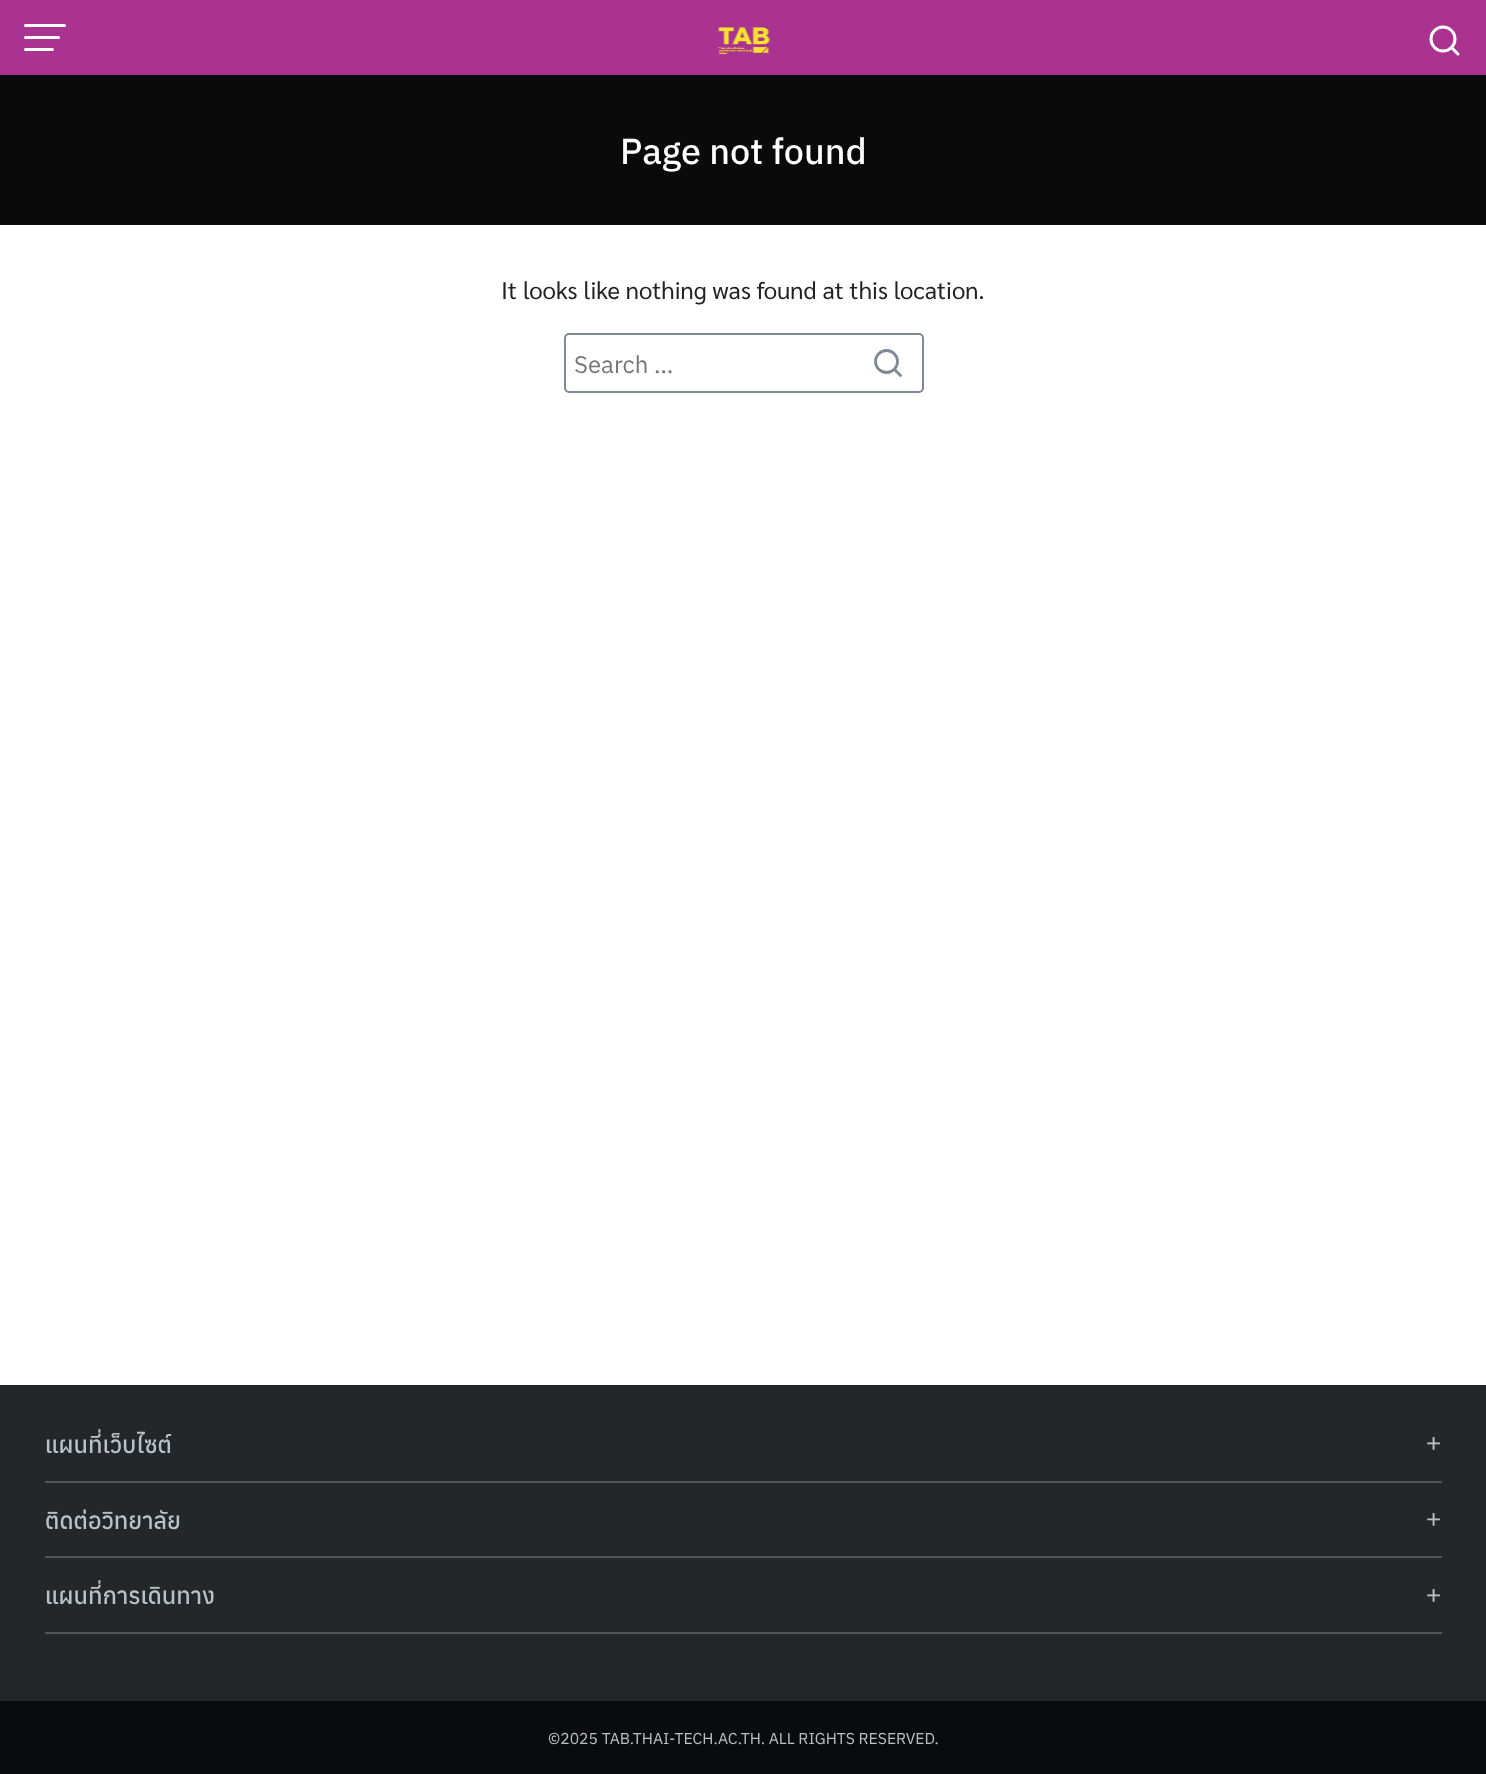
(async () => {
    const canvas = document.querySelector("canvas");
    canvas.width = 1486;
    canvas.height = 1774;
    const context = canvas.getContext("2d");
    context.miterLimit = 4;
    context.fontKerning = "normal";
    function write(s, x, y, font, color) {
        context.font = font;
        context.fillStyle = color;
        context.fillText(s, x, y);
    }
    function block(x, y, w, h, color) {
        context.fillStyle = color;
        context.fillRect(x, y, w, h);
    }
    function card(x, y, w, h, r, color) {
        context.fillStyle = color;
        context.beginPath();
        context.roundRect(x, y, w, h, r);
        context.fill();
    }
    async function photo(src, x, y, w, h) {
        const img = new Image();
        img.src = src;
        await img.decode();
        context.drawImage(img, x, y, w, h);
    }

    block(0, 0, 1486, 1774, "rgb(255, 255, 255)");
    block(0, 0, 1486, 75, "rgb(170, 51, 146)");
    card(24, 36, 36, 3, 1.5, "rgb(255, 255, 255)");
    card(24, 24, 42, 3, 1.5, "rgb(255, 255, 255)");
    card(24, 48, 30, 3, 1.5, "rgb(255, 255, 255)");
    await photo("media/1.png", 718, 27, 52, 28);
    context.beginPath();
    context.arc(1443, 39, 12, 0, Math.PI * 2);
    context.strokeStyle = "rgb(255, 255, 255)";
    context.lineWidth = 3;
    context.stroke();
    context.beginPath();
    context.moveTo(1458, 54);
    context.lineTo(1451.5, 47.5);
    context.lineCap = "round";
    context.lineJoin = "round";
    context.stroke();
    block(0, 75, 1486, 150, "rgb(10, 10, 10)");
    write("Page not found", 620, 164, "500 36px Anuphan", "rgb(255, 255, 255)");
    write("It looks like nothing was found at this location.", 501, 299, "24px Sarabun", "rgb(34, 34, 34)");
    context.beginPath();
    context.roundRect(565, 334, 358, 58, 4);
    context.strokeStyle = "rgb(126, 137, 147)";
    context.lineWidth = 2;
    context.lineJoin = "miter";
    context.stroke();
    write("Search …", 574, 373, "24px Anuphan", "rgb(117, 117, 117)");
    context.beginPath();
    context.arc(886.5, 361.5, 11, 0, Math.PI * 2);
    context.lineWidth = 2.8;
    context.stroke();
    context.beginPath();
    context.moveTo(900.5, 375.5);
    context.lineTo(894.5, 369.5);
    context.lineJoin = "round";
    context.stroke();
    block(0, 1385, 1486, 316, "rgb(36, 39, 41)");
    write("แผนที่เว็บไซต์", 45, 1453, "500 23.5px Anuphan", "rgb(187, 192, 196)");
    write("+", 1426, 1452, "26px Liberation Sans", "rgb(187, 192, 196)");
    block(45, 1481, 1397, 2, "rgb(81, 85, 88)");
    write("ติดต่อวิทยาลัย", 45, 1529, "500 23.5px Anuphan", "rgb(187, 192, 196)");
    write("+", 1426, 1528, "26px Liberation Sans", "rgb(187, 192, 196)");
    block(45, 1556, 1397, 2, "rgb(81, 85, 88)");
    write("แผนที่การเดินทาง", 45, 1604, "500 23.5px Anuphan", "rgb(187, 192, 196)");
    write("+", 1426, 1604, "26px Liberation Sans", "rgb(187, 192, 196)");
    block(45, 1632, 1397, 2, "rgb(81, 85, 88)");
    block(0, 1701, 1486, 73, "rgb(10, 11, 12)");
    write("©2025 TAB.THAI-TECH.AC.TH. ALL RIGHTS RESERVED.", 548, 1744, "15.75px Anuphan", "rgb(187, 192, 196)");
})();
